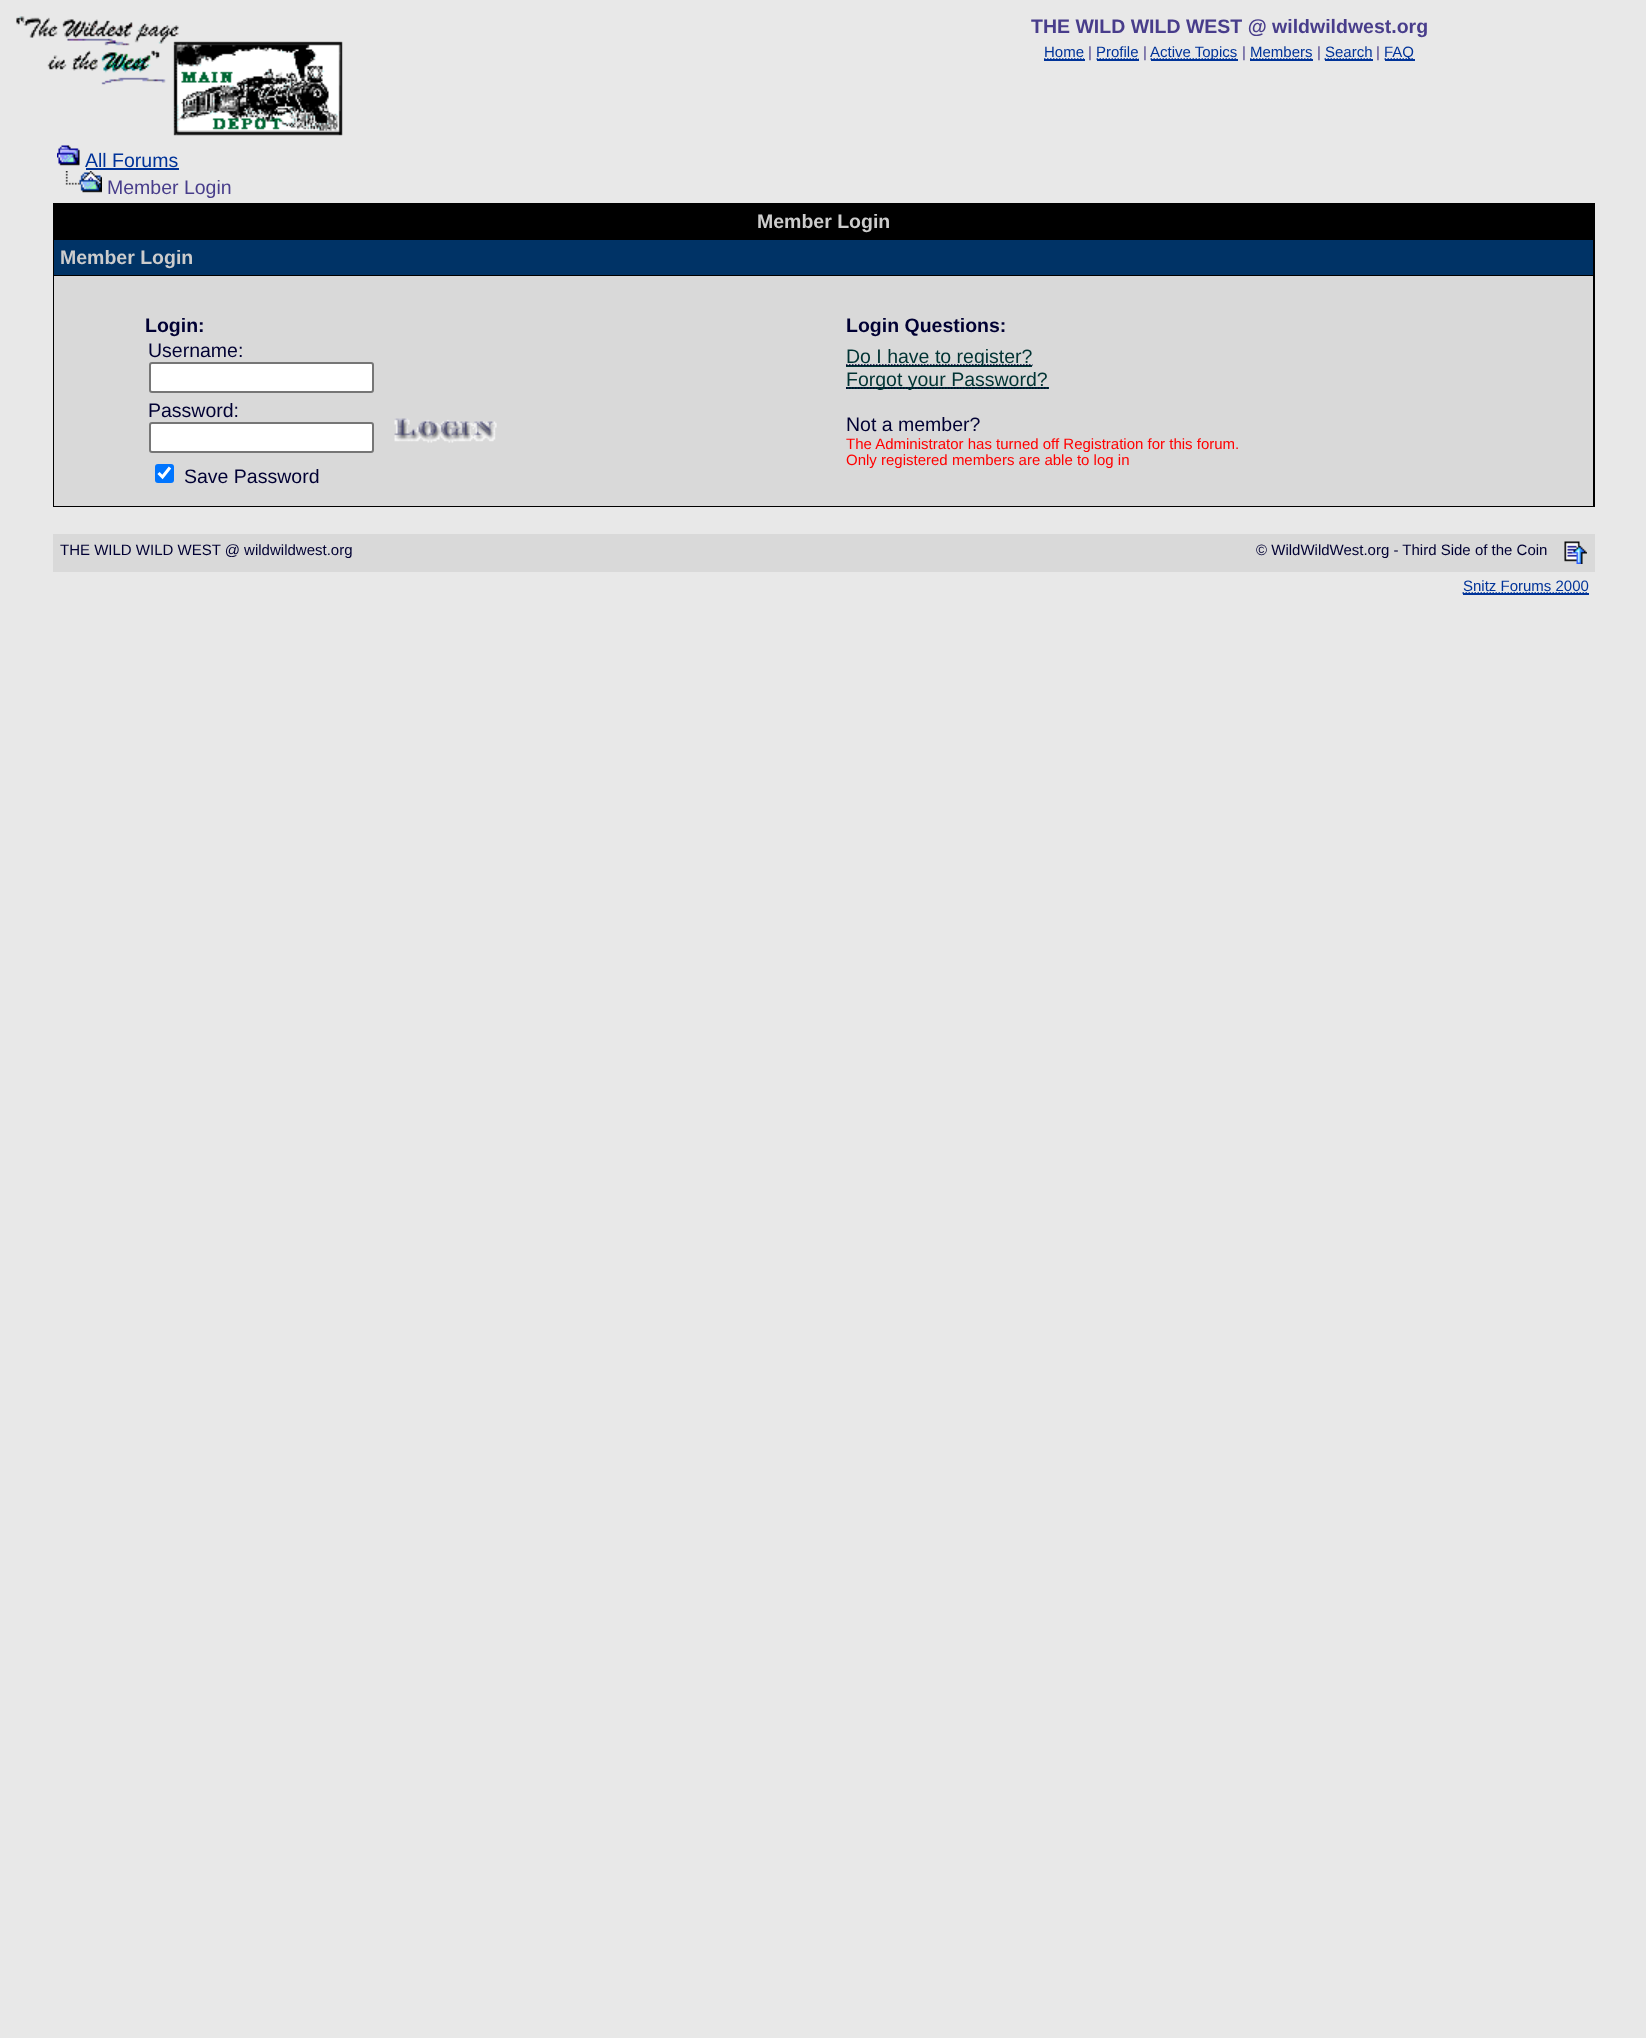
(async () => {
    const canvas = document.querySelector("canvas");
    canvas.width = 1646;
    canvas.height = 2038;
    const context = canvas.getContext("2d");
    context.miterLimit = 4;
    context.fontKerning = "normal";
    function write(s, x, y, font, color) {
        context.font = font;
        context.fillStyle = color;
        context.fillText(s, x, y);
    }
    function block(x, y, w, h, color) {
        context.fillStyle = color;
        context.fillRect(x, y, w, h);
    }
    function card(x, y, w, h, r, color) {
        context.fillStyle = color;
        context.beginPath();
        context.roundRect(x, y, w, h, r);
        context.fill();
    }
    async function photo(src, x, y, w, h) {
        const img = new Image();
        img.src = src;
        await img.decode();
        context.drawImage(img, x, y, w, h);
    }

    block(0, 0, 1646, 2038, "rgb(232, 232, 232)");
    await photo("media/1.png", 16, 16, 327, 120);
    write("THE WILD WILD WEST @ wildwildwest.org", 1031, 33, "bold 19.5px Liberation Sans", "rgb(72, 61, 139)");
    write("Home", 1044, 57, "15px Liberation Sans", "rgb(0, 51, 153)");
    context.beginPath();
    context.moveTo(1044, 59);
    context.lineTo(1084, 59);
    context.strokeStyle = "rgb(0, 51, 153)";
    context.lineWidth = 1.5;
    context.setLineDash([1.5, 1.5]);
    context.stroke();
    block(1044, 59, 41, 2, "rgb(0, 51, 153)");
    write("|", 1088, 57, "15px Liberation Sans", "rgb(72, 61, 139)");
    write("Profile", 1096, 57, "15px Liberation Sans", "rgb(0, 51, 153)");
    context.beginPath();
    context.moveTo(1096.5, 59);
    context.lineTo(1139, 59);
    context.stroke();
    block(1097, 59, 42, 2, "rgb(0, 51, 153)");
    write("|", 1143, 57, "15px Liberation Sans", "rgb(72, 61, 139)");
    context.beginPath();
    context.moveTo(1150.5, 59);
    context.lineTo(1237.5, 59);
    context.stroke();
    block(1151, 59, 87, 2, "rgb(0, 51, 153)");
    write("Active Topics", 1150, 57, "15px Liberation Sans", "rgb(0, 51, 153)");
    write("|", 1242, 57, "15px Liberation Sans", "rgb(72, 61, 139)");
    write("Members", 1250, 57, "15px Liberation Sans", "rgb(0, 51, 153)");
    context.beginPath();
    context.moveTo(1250, 59);
    context.lineTo(1312.5, 59);
    context.stroke();
    block(1250, 59, 63, 2, "rgb(0, 51, 153)");
    write("|", 1317, 57, "15px Liberation Sans", "rgb(72, 61, 139)");
    write("Search", 1325, 57, "15px Liberation Sans", "rgb(0, 51, 153)");
    context.beginPath();
    context.moveTo(1324.5, 59);
    context.lineTo(1372, 59);
    context.stroke();
    block(1325, 59, 48, 2, "rgb(0, 51, 153)");
    write("|", 1376, 57, "15px Liberation Sans", "rgb(72, 61, 139)");
    context.beginPath();
    context.moveTo(1384.5, 59);
    context.lineTo(1414.5, 59);
    context.stroke();
    block(1385, 59, 30, 2, "rgb(0, 51, 153)");
    write("FAQ", 1384, 57, "15px Liberation Sans", "rgb(0, 51, 153)");
    await photo("media/2.png", 57, 145, 23, 21);
    write("All Forums", 85, 167, "19.5px Liberation Sans", "rgb(0, 51, 153)");
    block(86, 168, 93, 2, "rgb(0, 51, 153)");
    await photo("media/3.png", 65, 171, 15, 14);
    await photo("media/4.png", 79, 171, 23, 22);
    write("Member Login", 107, 194, "19.5px Liberation Sans", "rgb(72, 61, 139)");
    block(53, 203, 1542, 304, "rgb(0, 0, 0)");
    write("Member Login", 757, 228, "bold 19.5px Liberation Sans", "rgb(204, 204, 204)");
    block(54, 240, 1539, 35, "rgb(0, 51, 102)");
    write("Member Login", 60, 264, "bold 19.5px Liberation Sans", "rgb(204, 204, 204)");
    block(54, 276, 1539, 230, "rgb(217, 217, 217)");
    write("Login:", 145, 332, "bold 19.5px Liberation Sans", "rgb(0, 0, 51)");
    write("Username:", 148, 357, "19.5px Liberation Sans", "rgb(0, 0, 51)");
    context.fillStyle = "rgb(255, 255, 255)";
    context.beginPath();
    context.roundRect(150, 363, 223, 29, 2);
    context.fill();
    context.strokeStyle = "rgb(118, 118, 118)";
    context.lineWidth = 2;
    context.setLineDash([]);
    context.stroke();
    await photo("media/5.png", 394, 418, 103, 25);
    write("Password:", 148, 417, "19.5px Liberation Sans", "rgb(0, 0, 51)");
    context.fillStyle = "rgb(255, 255, 255)";
    context.beginPath();
    context.roundRect(150, 423, 223, 29, 2);
    context.fill();
    context.stroke();
    card(155, 464, 19, 19, 3, "rgb(0, 117, 255)");
    context.beginPath();
    context.moveTo(158.5, 473);
    context.lineTo(162.5, 477);
    context.lineTo(170, 467.5);
    context.strokeStyle = "rgb(255, 255, 255)";
    context.lineWidth = 3.1;
    context.stroke();
    write("Save Password", 184, 483, "19.5px Liberation Sans", "rgb(0, 0, 51)");
    write("Login Questions:", 846, 332, "bold 19.5px Liberation Sans", "rgb(0, 0, 51)");
    block(846, 365, 186, 2, "rgb(0, 51, 51)");
    context.beginPath();
    context.moveTo(846, 365);
    context.lineTo(1032.5, 365);
    context.strokeStyle = "rgb(0, 0, 51)";
    context.lineWidth = 1.5;
    context.setLineDash([1.5, 1.5]);
    context.stroke();
    write("Do I have to register?", 846, 363, "19.5px Liberation Sans", "rgb(0, 51, 51)");
    block(846, 387, 203, 2, "rgb(0, 51, 51)");
    context.beginPath();
    context.moveTo(846, 388);
    context.lineTo(1048, 388);
    context.stroke();
    write("Forgot your Password?", 846, 386, "19.5px Liberation Sans", "rgb(0, 51, 51)");
    write("Not a member?", 846, 431, "19.5px Liberation Sans", "rgb(0, 0, 51)");
    write("The Administrator has turned off Registration for this forum.", 846, 449, "15px Liberation Sans", "rgb(255, 0, 0)");
    write("Only registered members are able to log in", 846, 465, "15px Liberation Sans", "rgb(255, 0, 0)");
    block(53, 534, 1542, 38, "rgb(217, 217, 217)");
    write("THE WILD WILD WEST @ wildwildwest.org", 60, 555, "15px Liberation Sans", "rgb(0, 0, 51)");
    write("© WildWildWest.org - Third Side of the Coin", 1256, 555, "15px Liberation Sans", "rgb(0, 0, 51)");
    await photo("media/6.png", 1564, 541, 23, 23);
    write("Snitz Forums 2000", 1463, 591, "15px Liberation Sans", "rgb(0, 51, 153)");
    context.beginPath();
    context.moveTo(1462.5, 593);
    context.lineTo(1588.5, 593);
    context.strokeStyle = "rgb(0, 51, 153)";
    context.stroke();
    block(1463, 593, 126, 2, "rgb(0, 51, 153)");
})();
